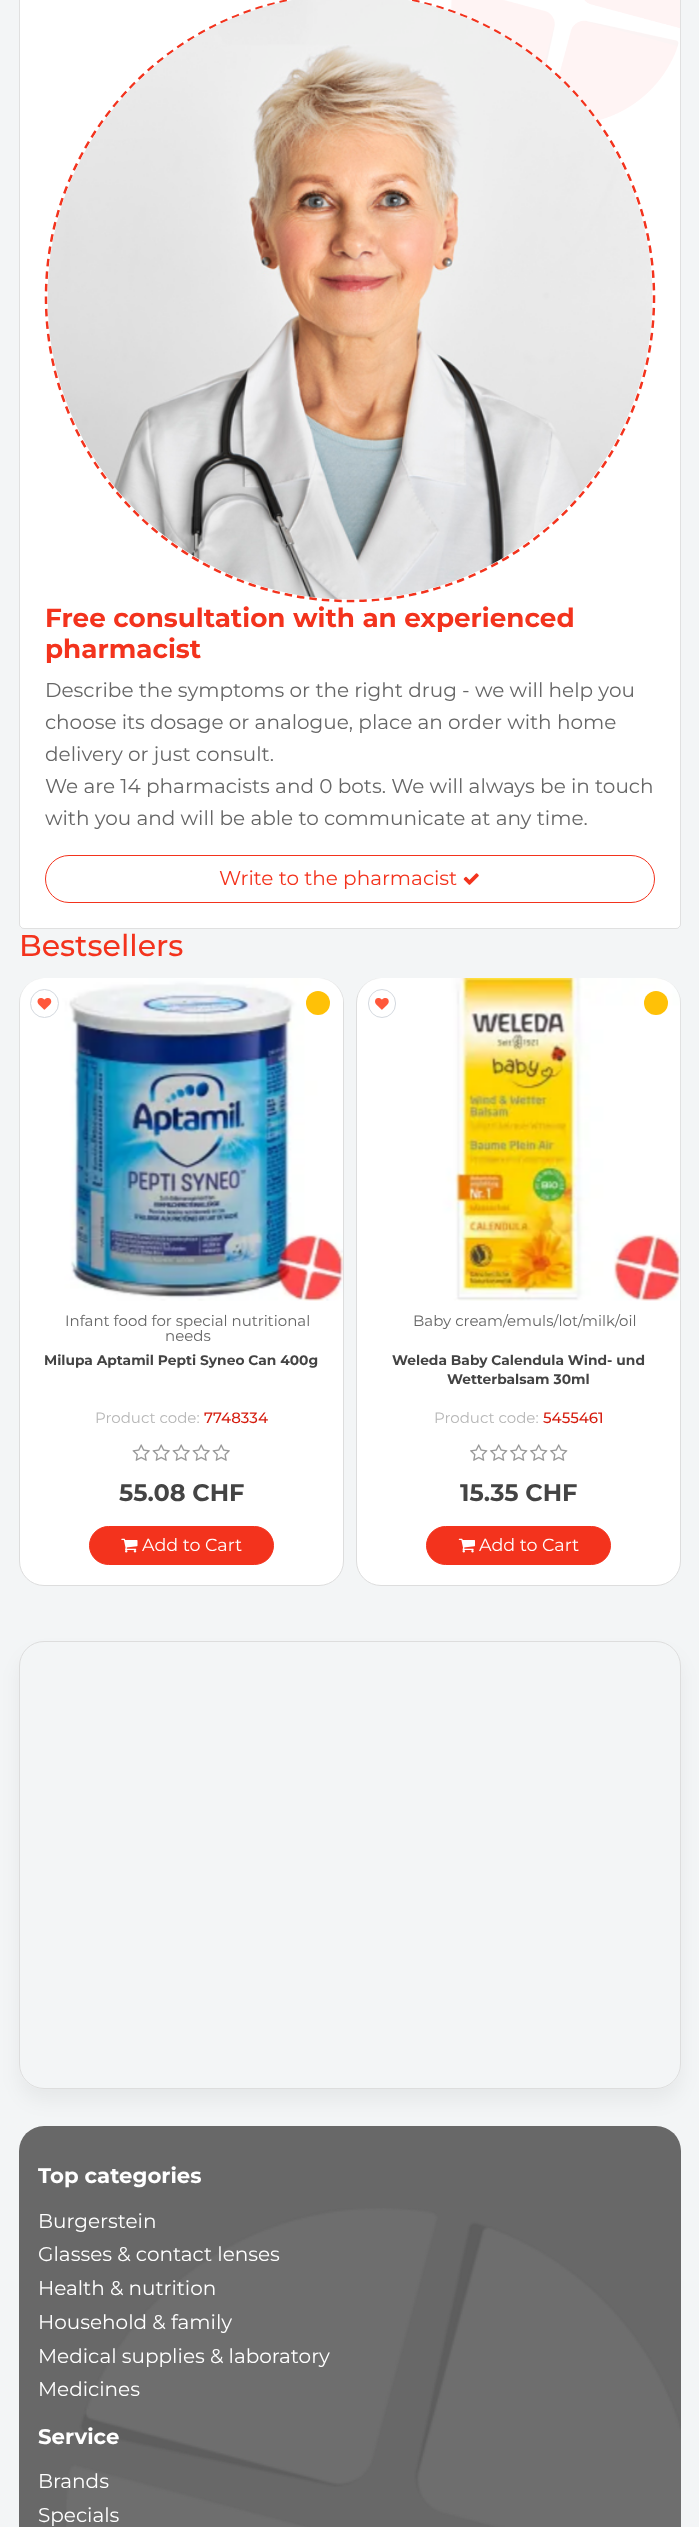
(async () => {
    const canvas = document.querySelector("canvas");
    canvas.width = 699;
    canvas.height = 2527;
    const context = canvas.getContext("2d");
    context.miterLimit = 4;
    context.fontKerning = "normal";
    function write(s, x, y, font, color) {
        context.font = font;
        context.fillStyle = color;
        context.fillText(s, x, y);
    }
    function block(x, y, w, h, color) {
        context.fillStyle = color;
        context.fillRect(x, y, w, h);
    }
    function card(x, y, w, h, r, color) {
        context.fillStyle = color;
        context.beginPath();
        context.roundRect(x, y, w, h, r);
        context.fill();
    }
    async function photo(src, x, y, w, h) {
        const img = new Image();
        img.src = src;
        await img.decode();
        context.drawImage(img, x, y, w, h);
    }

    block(0, 0, 699, 2527, "rgb(243, 245, 246)");
    card(19, -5, 662, 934, 5, "rgb(255, 255, 255)");
    context.beginPath();
    context.roundRect(19.5, -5.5, 661, 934, 4.5);
    context.strokeStyle = "rgba(0, 0, 0, 0.12)";
    context.stroke();
    await photo("media/1.png", 451, 0, 229, 125);
    context.beginPath();
    context.moveTo(350, -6);
    context.bezierCurveTo(518, -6, 654, 129.5, 654, 297.5);
    context.bezierCurveTo(654, 465.5, 518, 601, 350, 601);
    context.bezierCurveTo(182, 601, 46, 465.5, 46, 297.5);
    context.bezierCurveTo(46, 129.5, 182, -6, 350, -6);
    context.closePath();
    context.strokeStyle = "rgb(243, 51, 29)";
    context.lineWidth = 2.5;
    context.setLineDash([7.5, 5]);
    context.stroke();
    await photo("media/2.png", 47, 0, 606, 600);
    write("Free consultation with an experienced", 45, 627, "bold 26.25px Montserrat", "rgb(243, 51, 29)");
    write("pharmacist", 45, 658, "bold 26.25px Montserrat", "rgb(243, 51, 29)");
    write("Describe the symptoms or the right drug - we will help you", 45, 697, "20px Montserrat", "rgb(102, 102, 102)");
    write("choose its dosage or analogue, place an order with home", 45, 729, "20px Montserrat", "rgb(102, 102, 102)");
    write("delivery or just consult.", 45, 761, "20px Montserrat", "rgb(102, 102, 102)");
    write("We are 14 pharmacists and 0 bots. We will always be in touch", 45, 793, "20px Montserrat", "rgb(102, 102, 102)");
    write("with you and will be able to communicate at any time.", 45, 825, "20px Montserrat", "rgb(102, 102, 102)");
    context.beginPath();
    context.roundRect(45.5, 855.5, 609, 47, 23.5);
    context.lineWidth = 1;
    context.setLineDash([]);
    context.stroke();
    write("Write to the pharmacist", 219, 885, "20px Montserrat", "rgb(243, 51, 29)");
    await photo("media/3.png", 463, 873, 16, 12);
    write("Bestsellers", 19, 956, "500 30px Montserrat", "rgb(243, 51, 29)");
    context.fillStyle = "rgb(255, 255, 255)";
    context.beginPath();
    context.roundRect(19.5, 978.5, 324, 607, 24.5);
    context.fill();
    context.strokeStyle = "rgb(221, 221, 221)";
    context.stroke();
    await photo("media/4.png", 19, 978, 324, 323);
    context.beginPath();
    context.arc(44.5, 1003.5, 14, 0, Math.PI * 2);
    context.strokeStyle = "rgb(212, 217, 223)";
    context.stroke();
    await photo("media/5.png", 37, 998, 15, 12);
    context.fillStyle = "rgb(255, 193, 7)";
    context.beginPath();
    context.arc(318, 1003, 12, 0, Math.PI * 2);
    context.fill();
    write("Infant food for special nutritional", 65, 1326, "15px Montserrat", "rgb(102, 102, 102)");
    write("needs", 165, 1341, "15px Montserrat", "rgb(102, 102, 102)");
    write("Milupa Aptamil Pepti Syneo Can 400g", 44, 1365, "bold 13.8px Montserrat", "rgb(68, 68, 68)");
    write("Product code:", 95, 1423, "15px Montserrat", "rgb(183, 183, 183)");
    write("7748334", 204, 1423, "500 15px Montserrat", "rgb(213, 28, 14)");
    await photo("media/6.png", 132, 1444, 18, 17);
    await photo("media/6.png", 152, 1444, 18, 17);
    await photo("media/6.png", 172, 1444, 18, 17);
    await photo("media/6.png", 192, 1444, 18, 17);
    await photo("media/6.png", 212, 1444, 18, 17);
    write("55.08 CHF", 119, 1501, "bold 24px Montserrat", "rgb(68, 68, 68)");
    context.fillStyle = "rgb(243, 51, 29)";
    context.beginPath();
    context.roundRect(89.5, 1526.5, 184, 38, 19);
    context.fill();
    context.strokeStyle = "rgb(243, 51, 29)";
    context.stroke();
    await photo("media/7.png", 121, 1538, 17, 15);
    write("Add to Cart", 142, 1551, "17.5px Montserrat", "rgb(255, 255, 255)");
    context.beginPath();
    context.roundRect(356.5, 978.5, 324, 607, 24.5);
    context.fill();
    context.strokeStyle = "rgb(221, 221, 221)";
    context.stroke();
    await photo("media/8.png", 358, 978, 323, 323);
    context.beginPath();
    context.roundRect(368.5, 989.5, 27, 28, 13.5);
    context.strokeStyle = "rgb(212, 217, 223)";
    context.stroke();
    await photo("media/9.png", 375, 998, 14, 12);
    context.fillStyle = "rgb(255, 193, 7)";
    context.beginPath();
    context.arc(656, 1003, 12, 0, Math.PI * 2);
    context.fill();
    context.save();
    context.beginPath();
    context.rect(401, 1314, 235, 30);
    context.clip();
    write("Baby cream/emuls/lot/milk/oil", 413, 1326, "15px Montserrat", "rgb(102, 102, 102)");
    context.restore();
    write("Weleda Baby Calendula Wind- und", 392, 1365, "bold 13.8px Montserrat", "rgb(68, 68, 68)");
    write("Wetterbalsam 30ml", 447, 1384, "bold 13.8px Montserrat", "rgb(68, 68, 68)");
    write("Product code:", 434, 1423, "15px Montserrat", "rgb(183, 183, 183)");
    write("5455461", 543, 1423, "500 15px Montserrat", "rgb(213, 28, 14)");
    await photo("media/10.png", 470, 1444, 18, 17);
    await photo("media/10.png", 490, 1444, 18, 17);
    await photo("media/10.png", 510, 1444, 18, 17);
    await photo("media/10.png", 530, 1444, 18, 17);
    await photo("media/10.png", 550, 1444, 18, 17);
    write("15.35 CHF", 460, 1501, "bold 24px Montserrat", "rgb(68, 68, 68)");
    context.fillStyle = "rgb(243, 51, 29)";
    context.beginPath();
    context.roundRect(426.5, 1526.5, 184, 38, 19);
    context.fill();
    context.strokeStyle = "rgb(243, 51, 29)";
    context.stroke();
    await photo("media/11.png", 458, 1538, 17, 15);
    write("Add to Cart", 479, 1551, "17.5px Montserrat", "rgb(255, 255, 255)");
    card(19, 2126, 662, 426, 25, "rgb(104, 104, 104)");
    context.save();
    context.beginPath();
    context.moveTo(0, 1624);
    context.lineTo(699, 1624);
    context.lineTo(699, 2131);
    context.lineTo(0, 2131);
    context.closePath();
    context.moveTo(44, 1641);
    context.lineTo(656, 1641);
    context.bezierCurveTo(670, 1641, 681, 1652, 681, 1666);
    context.lineTo(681, 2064);
    context.bezierCurveTo(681, 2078, 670, 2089, 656, 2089);
    context.lineTo(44, 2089);
    context.bezierCurveTo(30, 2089, 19, 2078, 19, 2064);
    context.lineTo(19, 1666);
    context.bezierCurveTo(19, 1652, 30, 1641, 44, 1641);
    context.closePath();
    context.clip("evenodd");
    context.fillStyle = "rgba(0, 0, 0, 0.05)";
    context.filter = "blur(9.5px)";
    context.beginPath();
    context.roundRect(19, 1654, 662, 447, 25);
    context.fill();
    context.filter = "none";
    context.restore();
    context.beginPath();
    context.roundRect(19.5, 1641.5, 661, 447, 24.5);
    context.strokeStyle = "rgb(221, 221, 221)";
    context.stroke();
    await photo("media/12.png", 66, 2208, 615, 319);
    write("Top categories", 38, 2183, "bold 21.25px Montserrat", "rgb(255, 255, 255)");
    write("Burgerstein", 38, 2228, "20px Montserrat", "rgb(255, 255, 255)");
    write("Glasses & contact lenses", 38, 2261, "20px Montserrat", "rgb(255, 255, 255)");
    write("Health & nutrition", 38, 2295, "20px Montserrat", "rgb(255, 255, 255)");
    write("Household & family", 38, 2329, "20px Montserrat", "rgb(255, 255, 255)");
    write("Medical supplies & laboratory", 38, 2363, "20px Montserrat", "rgb(255, 255, 255)");
    write("Medicines", 38, 2396, "20px Montserrat", "rgb(255, 255, 255)");
    write("Service", 38, 2444, "bold 21.25px Montserrat", "rgb(255, 255, 255)");
    write("Brands", 38, 2488, "20px Montserrat", "rgb(255, 255, 255)");
    write("Specials", 38, 2522, "20px Montserrat", "rgb(255, 255, 255)");
})();
